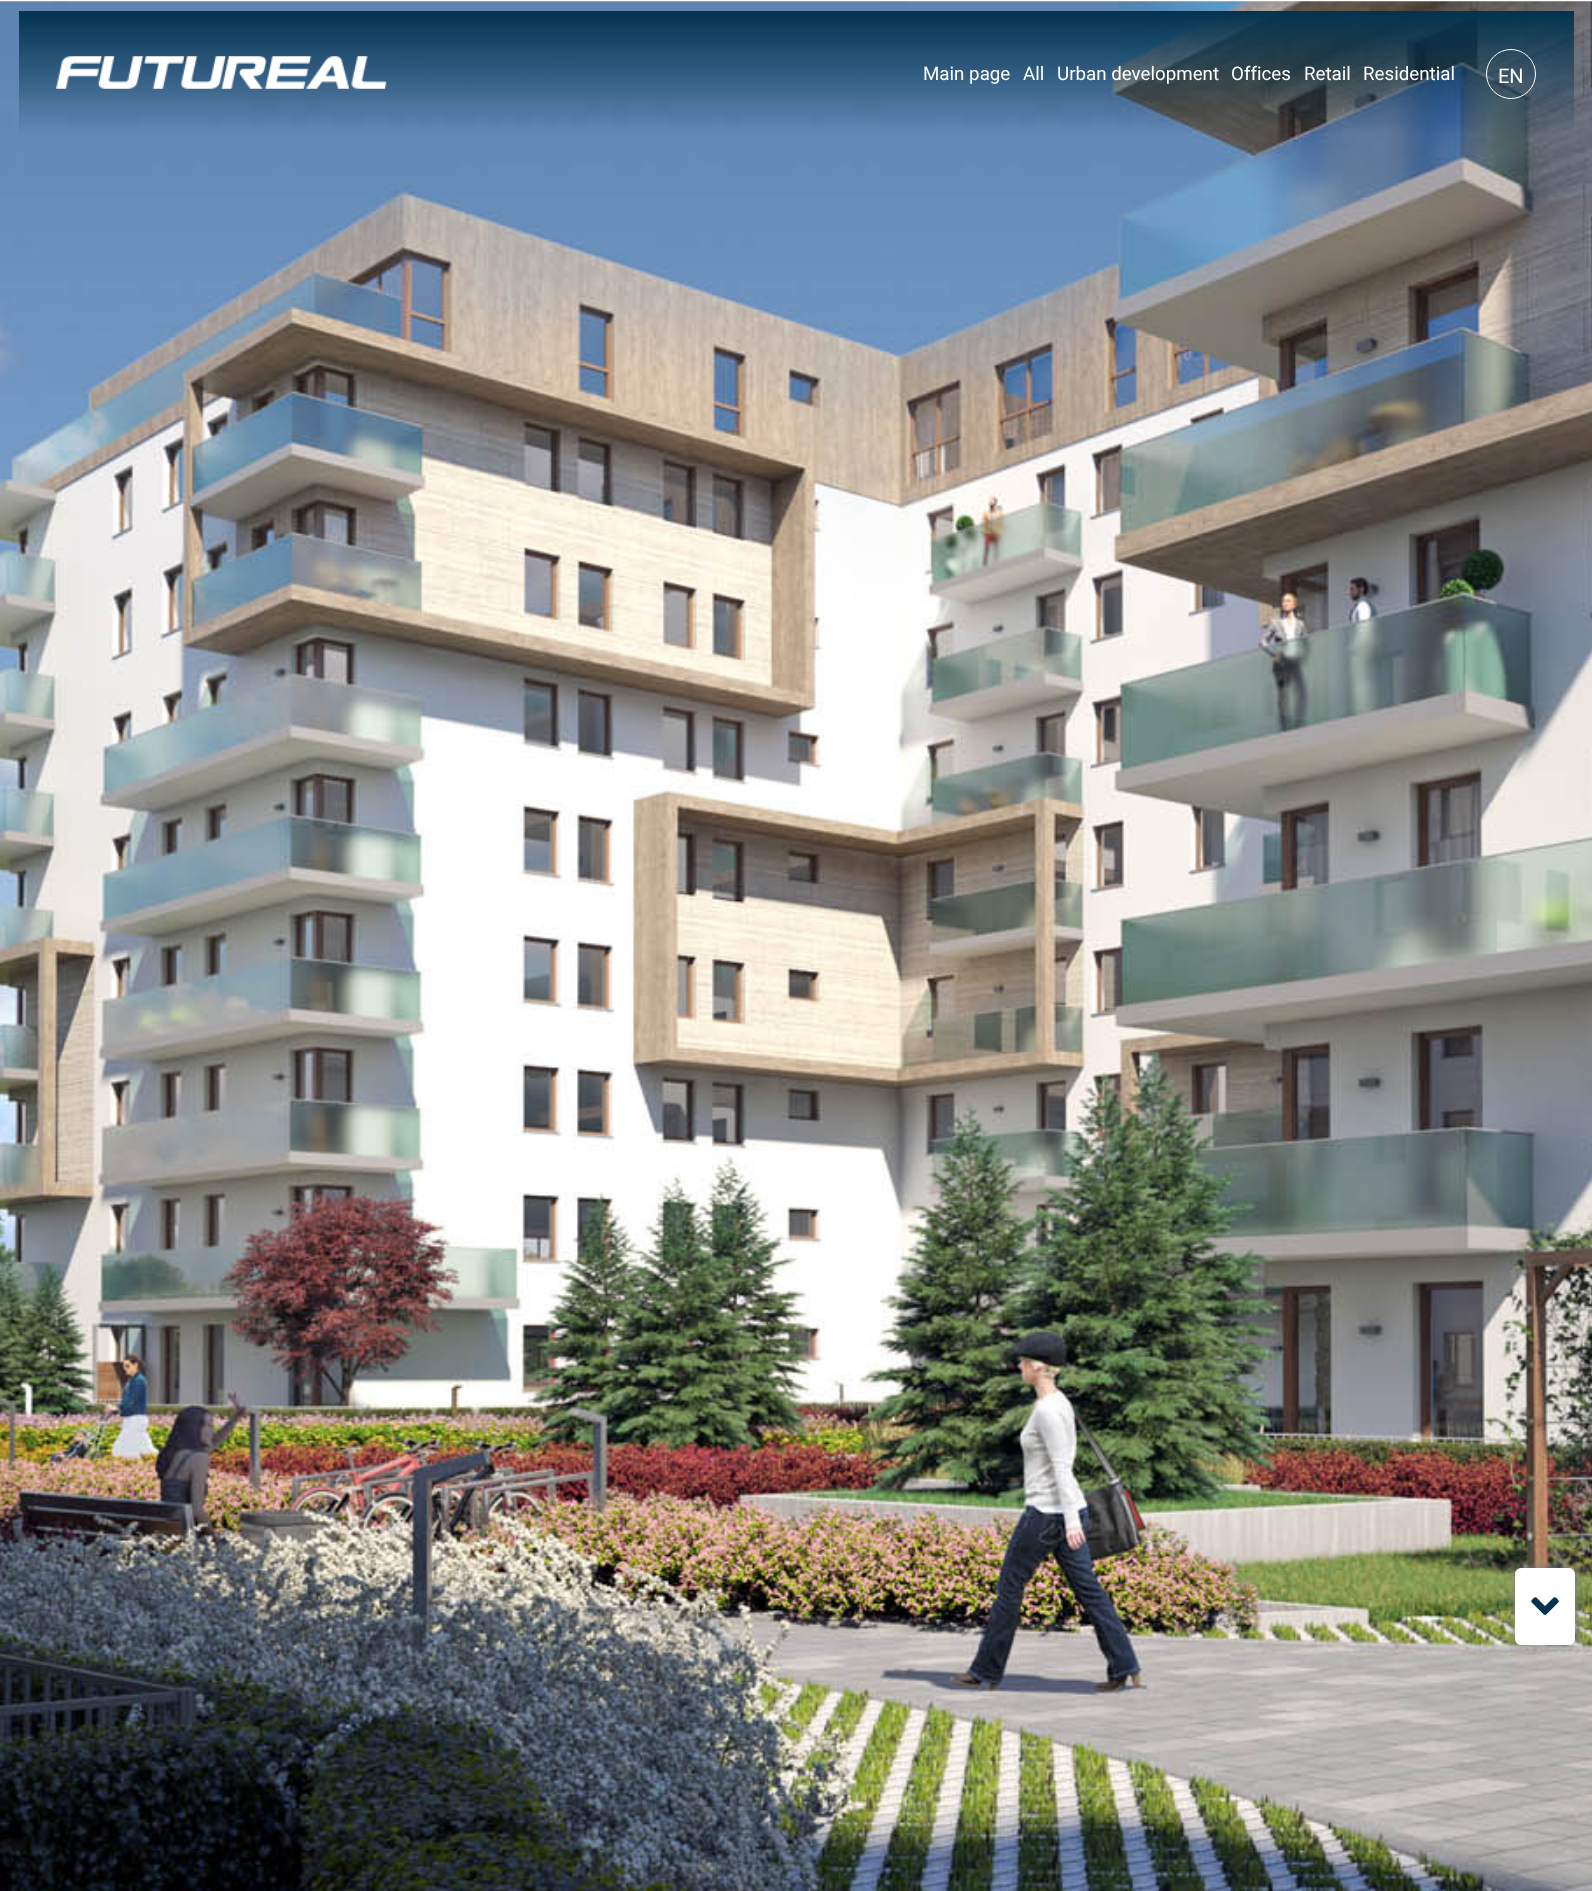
(async () => {
    const canvas = document.querySelector("canvas");
    canvas.width = 1592;
    canvas.height = 1891;
    const context = canvas.getContext("2d");
    context.miterLimit = 4;
    context.fontKerning = "normal";
    function write(s, x, y, font, color) {
        context.font = font;
        context.fillStyle = color;
        context.fillText(s, x, y);
    }
    function block(x, y, w, h, color) {
        context.fillStyle = color;
        context.fillRect(x, y, w, h);
    }
    function card(x, y, w, h, r, color) {
        context.fillStyle = color;
        context.beginPath();
        context.roundRect(x, y, w, h, r);
        context.fill();
    }
    async function photo(src, x, y, w, h) {
        const img = new Image();
        img.src = src;
        await img.decode();
        context.drawImage(img, x, y, w, h);
    }

    block(0, 0, 1592, 1891, "rgb(255, 255, 255)");
    await photo("media/1.png", 0, 1, 1592, 1890);
    await photo("media/2.png", 56, 56, 331, 33);
    write("Main page", 923, 80, "18.75px Roboto", "rgb(255, 255, 255)");
    write("All", 1023, 80, "18.75px Roboto", "rgb(255, 255, 255)");
    write("Urban development", 1057, 80, "18.75px Roboto", "rgb(255, 255, 255)");
    write("Offices", 1231, 80, "18.75px Roboto", "rgb(255, 255, 255)");
    write("Retail", 1304, 80, "18.75px Roboto", "rgb(255, 255, 255)");
    write("Residential", 1363, 80, "18.75px Roboto", "rgb(255, 255, 255)");
    context.beginPath();
    context.arc(1511, 74, 24.5, 0, Math.PI * 2);
    context.strokeStyle = "rgb(255, 255, 255)";
    context.stroke();
    write("EN", 1498, 83, "20px Roboto", "rgb(255, 255, 255)");
    context.fillStyle = "rgb(128, 128, 128)";
    context.filter = "blur(6px)";
    context.beginPath();
    context.roundRect(1515, 1568, 60, 77, 6);
    context.fill();
    context.filter = "none";
    card(1515, 1568, 60, 77, 6, "rgb(255, 255, 255)");
    await photo("media/3.png", 1531, 1597, 28, 18);
})();
